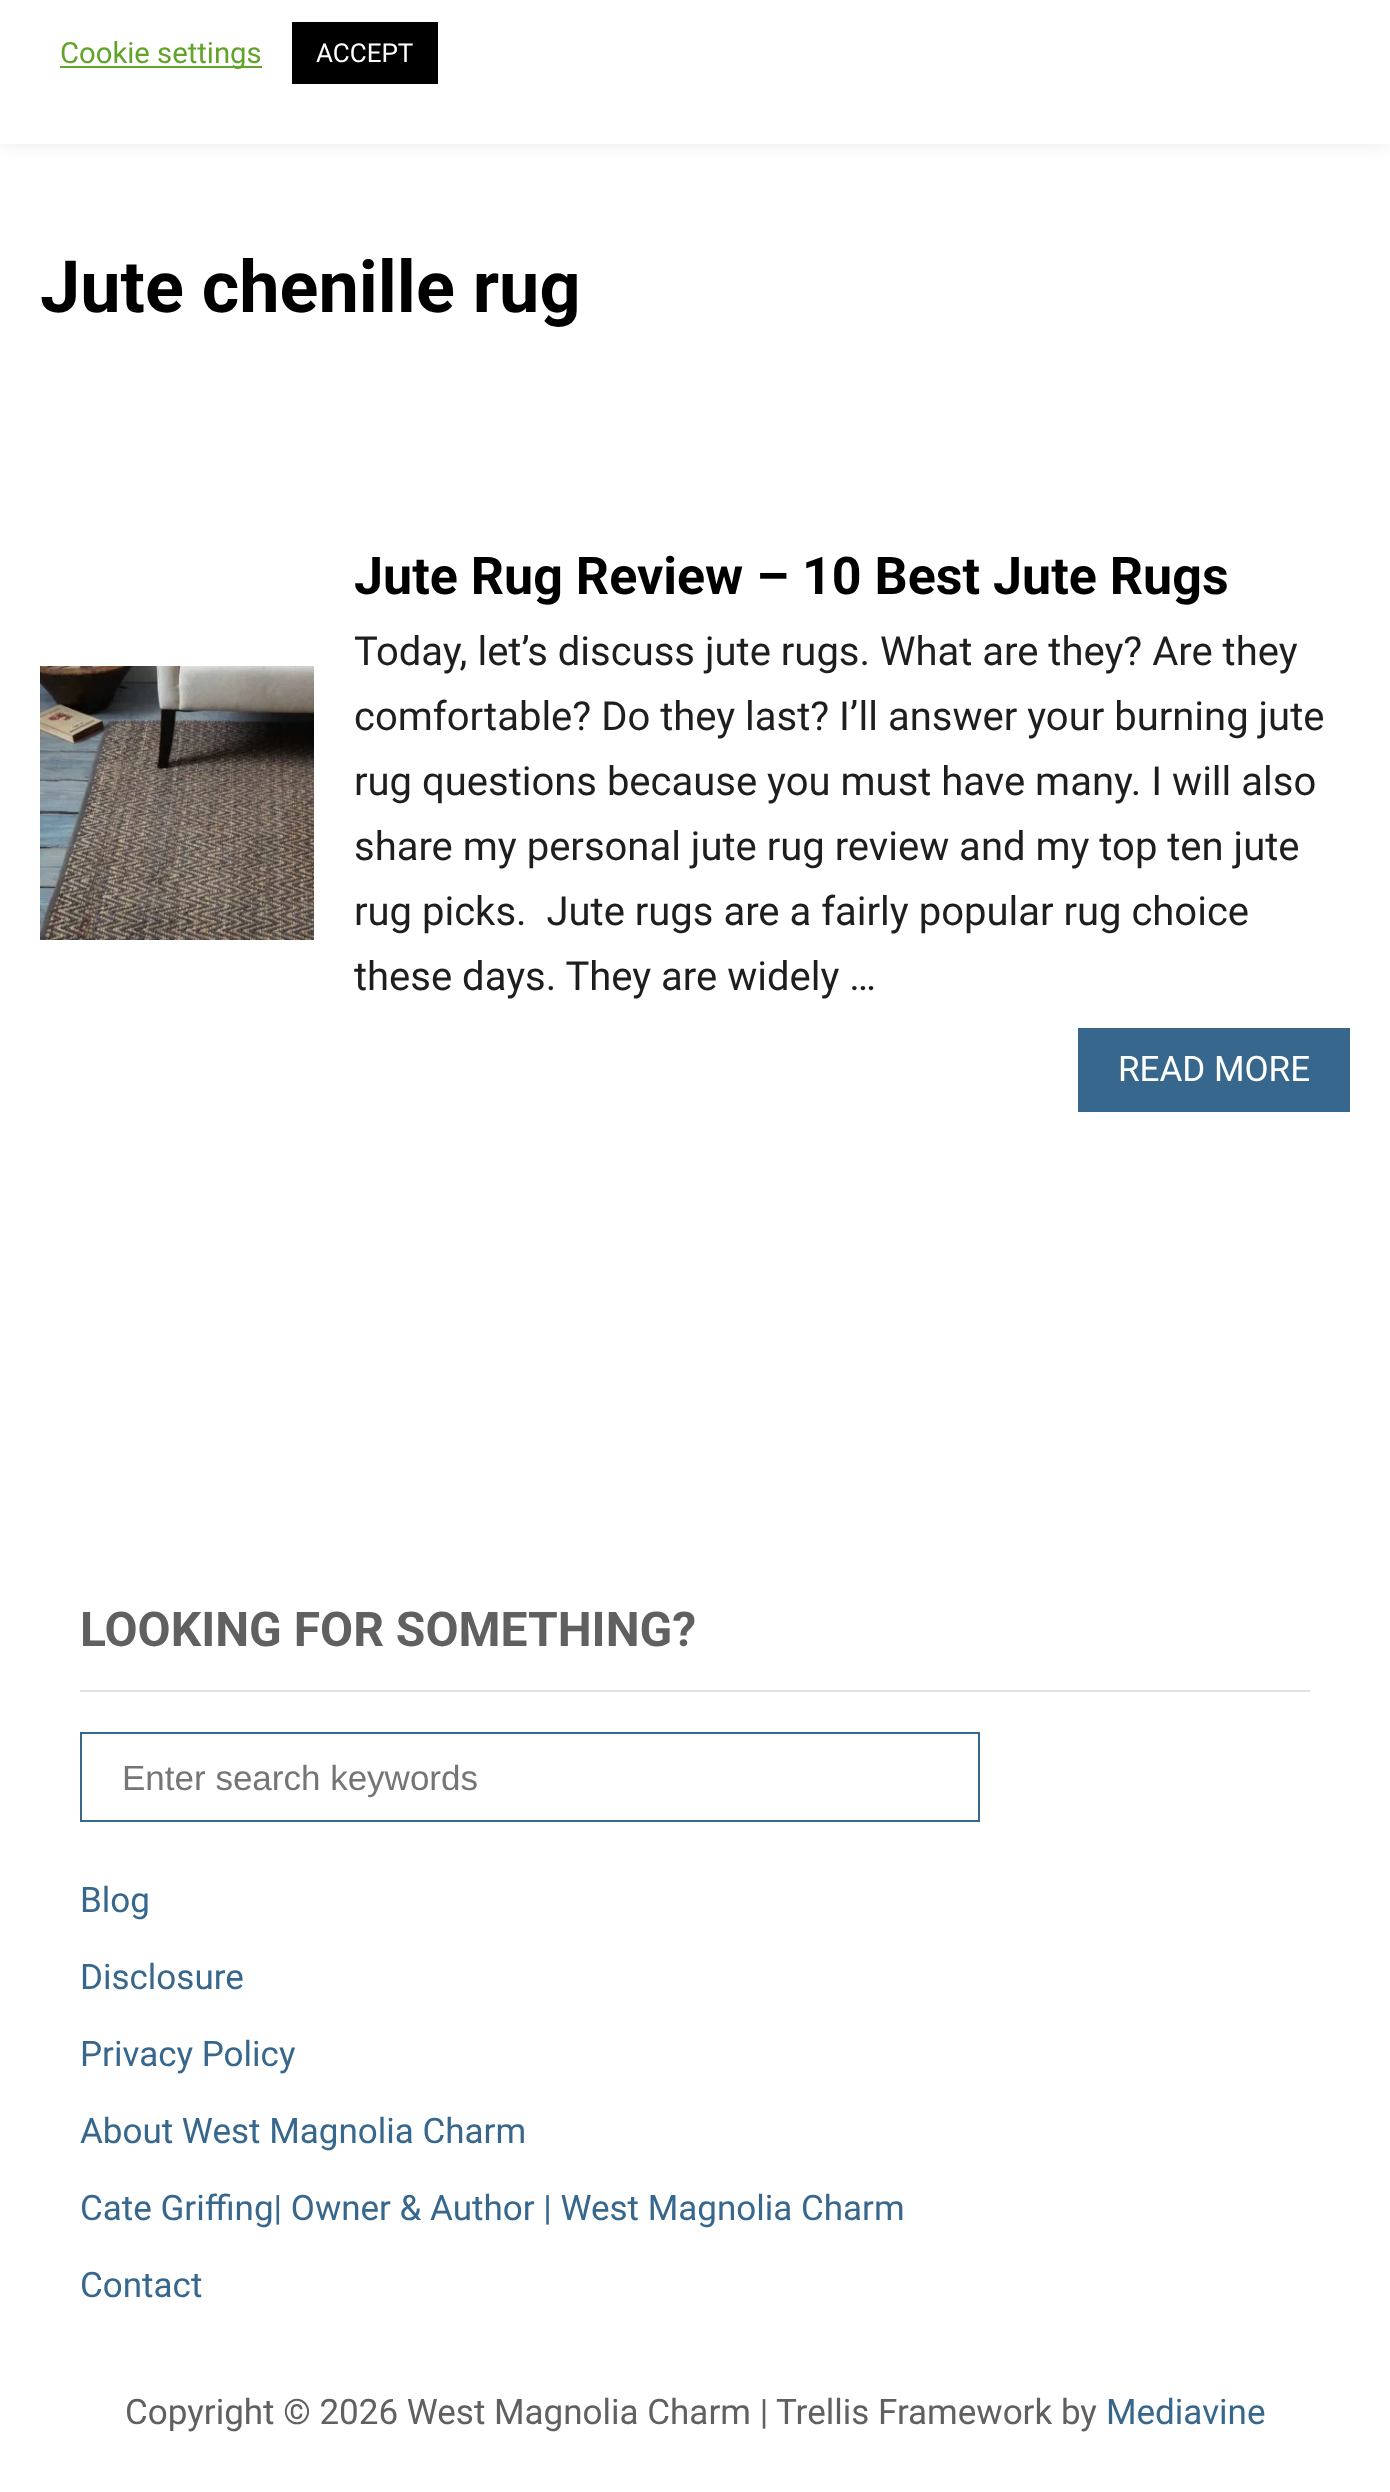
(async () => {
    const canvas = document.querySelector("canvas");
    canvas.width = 1390;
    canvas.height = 2492;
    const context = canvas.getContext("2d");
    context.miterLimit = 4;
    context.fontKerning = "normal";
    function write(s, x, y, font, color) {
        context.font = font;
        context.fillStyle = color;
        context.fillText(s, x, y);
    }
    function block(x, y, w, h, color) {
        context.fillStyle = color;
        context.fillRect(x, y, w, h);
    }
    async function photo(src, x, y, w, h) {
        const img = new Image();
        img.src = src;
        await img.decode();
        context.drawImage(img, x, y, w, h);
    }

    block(0, 0, 1390, 2492, "rgb(255, 255, 255)");
    context.fillStyle = "rgba(172, 171, 171, 0.3)";
    context.filter = "blur(10px)";
    context.beginPath();
    context.rect(0, -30, 1390, 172);
    context.fill();
    context.filter = "none";
    block(0, 0, 1390, 144, "rgb(255, 255, 255)");
    block(60, 66, 202, 2, "rgb(98, 163, 41)");
    write("Cookie settings", 60, 63, "29.25px Roboto", "rgb(98, 163, 41)");
    block(292, 22, 146, 62, "rgb(0, 0, 0)");
    write("ACCEPT", 316, 62, "26px Roboto", "rgb(255, 255, 255)");
    write("Jute chenille rug", 40, 312, "bold 72px Roboto", "rgb(0, 0, 0)");
    await photo("media/1.png", 40, 666, 274, 274);
    write("Jute Rug Review – 10 Best Jute Rugs", 354, 594, "bold 52px Roboto", "rgb(0, 0, 0)");
    write("Today, let’s discuss jute rugs. What are they? Are they", 354, 665, "40px Roboto", "rgb(30, 30, 30)");
    write("comfortable? Do they last? I’ll answer your burning jute", 354, 730, "40px Roboto", "rgb(30, 30, 30)");
    write("rug questions because you must have many. I will also", 354, 795, "40px Roboto", "rgb(30, 30, 30)");
    write("share my personal jute rug review and my top ten jute", 354, 860, "40px Roboto", "rgb(30, 30, 30)");
    write("rug picks.  Jute rugs are a fairly popular rug choice", 354, 925, "40px Roboto", "rgb(30, 30, 30)");
    write("these days. They are widely …", 354, 990, "40px Roboto", "rgb(30, 30, 30)");
    block(1078, 1028, 272, 84, "rgb(55, 103, 140)");
    write("READ MORE", 1118, 1081, "35px Roboto", "rgb(255, 255, 255)");
    block(80, 1690, 1230, 2, "rgb(225, 225, 225)");
    write("LOOKING FOR SOMETHING?", 80, 1646, "bold 48px Roboto", "rgb(96, 96, 96)");
    context.strokeStyle = "rgb(55, 103, 140)";
    context.lineWidth = 2;
    context.strokeRect(81, 1733, 898, 88);
    write("Enter search keywords", 122, 1790, "35px Liberation Sans", "rgb(117, 117, 117)");
    write("Blog", 80, 1912, "35px Roboto", "rgb(55, 103, 140)");
    write("Disclosure", 80, 1989, "35px Roboto", "rgb(55, 103, 140)");
    write("Privacy Policy", 80, 2066, "35px Roboto", "rgb(55, 103, 140)");
    write("About West Magnolia Charm", 80, 2143, "35px Roboto", "rgb(55, 103, 140)");
    write("Cate Griffing| Owner & Author | West Magnolia Charm", 80, 2220, "35px Roboto", "rgb(55, 103, 140)");
    write("Contact", 80, 2297, "35px Roboto", "rgb(55, 103, 140)");
    write("Copyright © 2026 West Magnolia Charm |", 125, 2424, "35px Roboto", "rgb(96, 96, 96)");
    write("Trellis Framework by", 776, 2424, "35px Roboto", "rgb(96, 96, 96)");
    write("Mediavine", 1106, 2424, "35px Roboto", "rgb(55, 103, 140)");
})();
